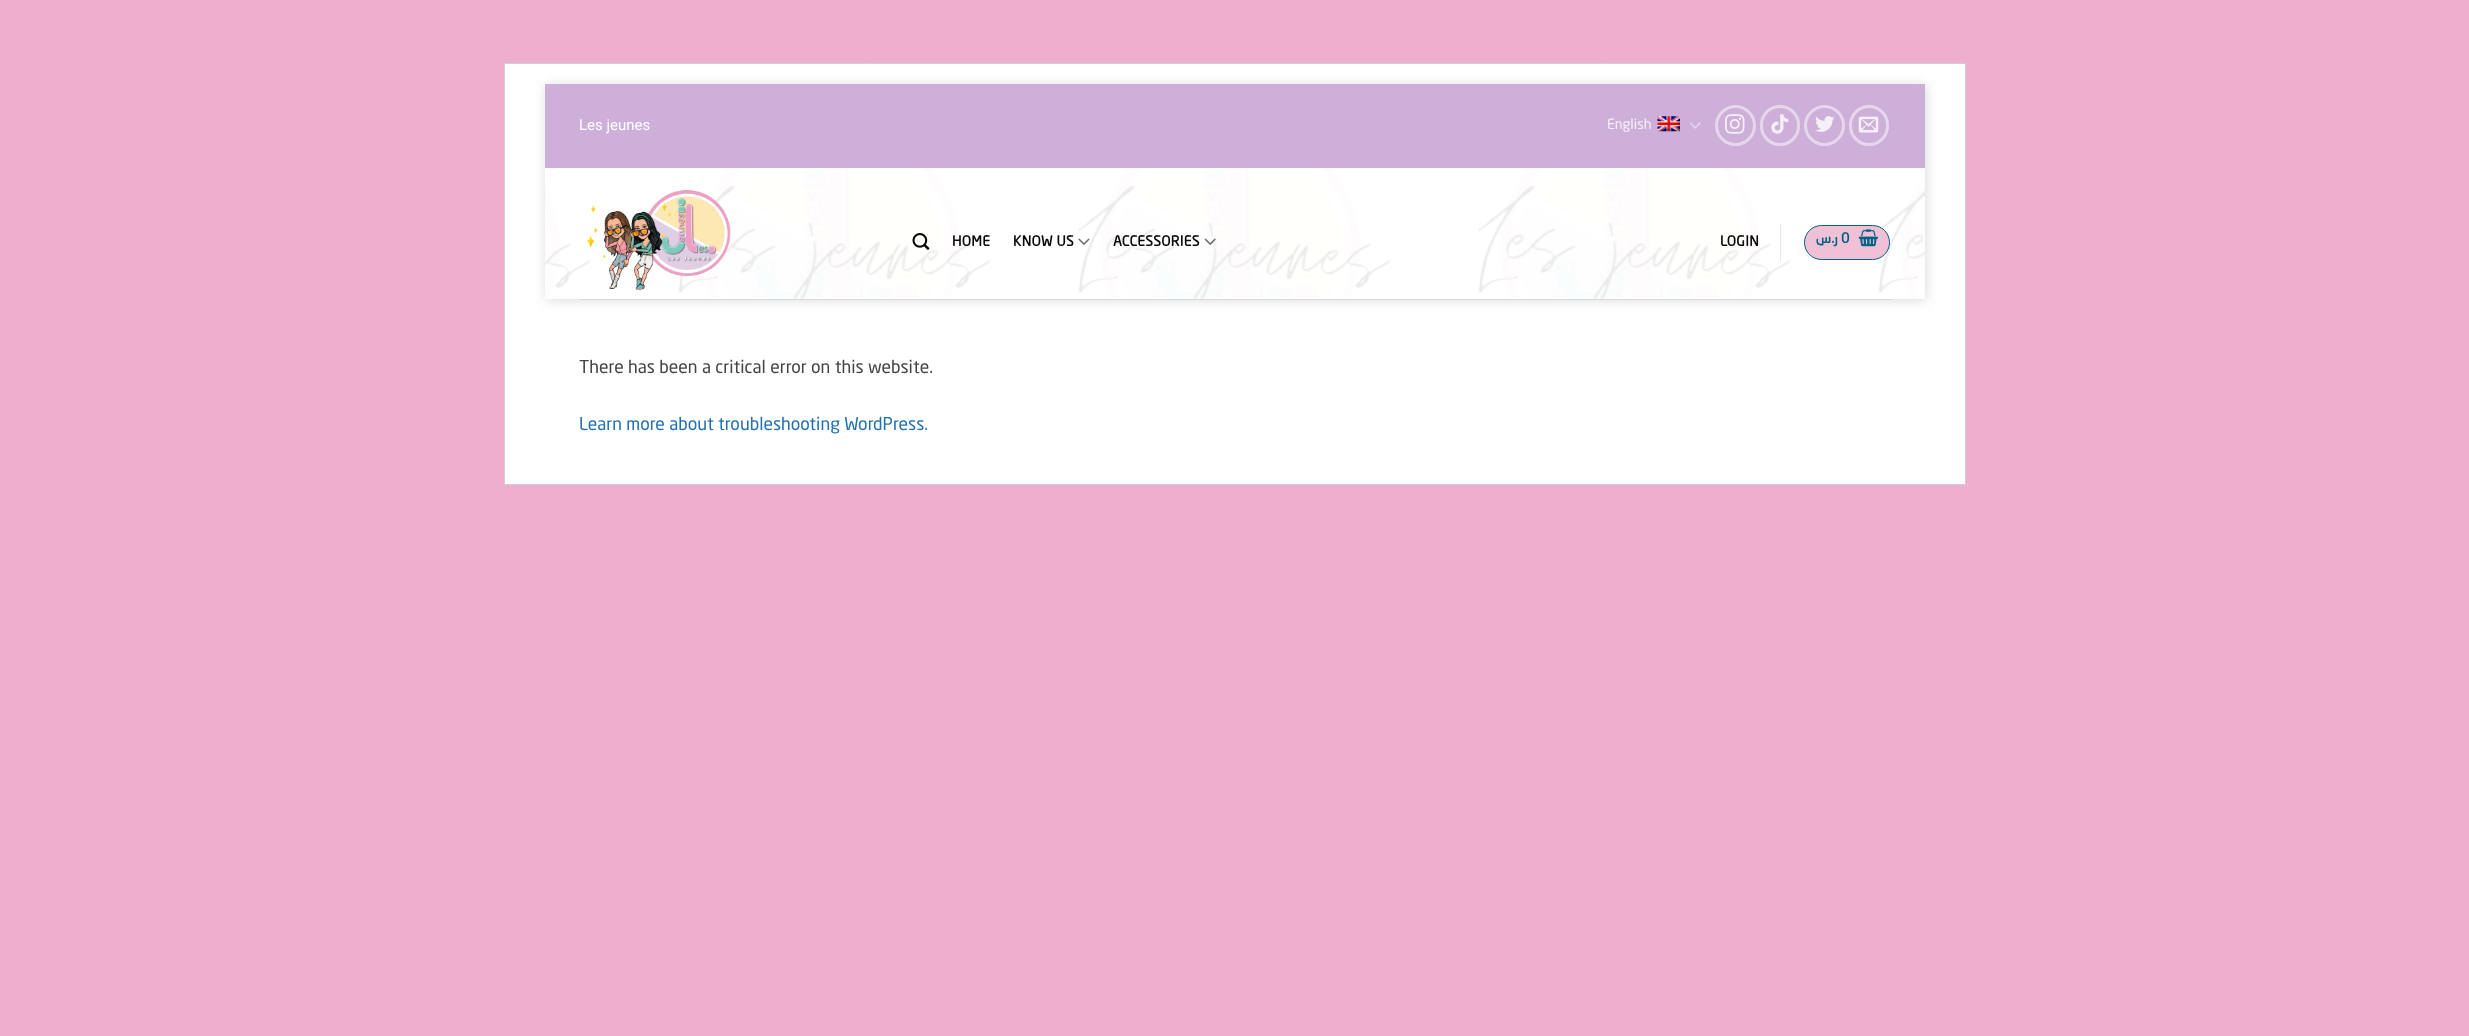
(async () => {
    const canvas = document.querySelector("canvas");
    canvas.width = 2469;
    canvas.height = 1036;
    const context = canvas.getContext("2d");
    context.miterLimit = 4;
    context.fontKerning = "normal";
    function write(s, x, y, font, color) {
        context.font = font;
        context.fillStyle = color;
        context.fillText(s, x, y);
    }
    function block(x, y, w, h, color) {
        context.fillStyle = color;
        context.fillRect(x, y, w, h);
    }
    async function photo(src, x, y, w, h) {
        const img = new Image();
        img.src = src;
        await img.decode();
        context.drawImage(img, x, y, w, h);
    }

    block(0, 0, 2469, 1036, "rgb(239, 174, 206)");
    context.fillStyle = "rgb(255, 255, 255)";
    context.beginPath();
    context.rect(504.5, 63.5, 1461, 421);
    context.fill();
    context.strokeStyle = "rgb(204, 208, 212)";
    context.stroke();
    context.save();
    context.beginPath();
    context.moveTo(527, 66);
    context.lineTo(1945, 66);
    context.lineTo(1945, 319);
    context.lineTo(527, 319);
    context.closePath();
    context.moveTo(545, 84);
    context.lineTo(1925, 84);
    context.lineTo(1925, 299);
    context.lineTo(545, 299);
    context.closePath();
    context.clip("evenodd");
    context.fillStyle = "rgba(0, 0, 0, 0.15)";
    context.filter = "blur(6px)";
    context.beginPath();
    context.rect(546, 85, 1380, 215);
    context.fill();
    context.filter = "none";
    context.restore();
    await photo("media/7.png", 545, 120, 1380, 179);
    block(545, 120, 1380, 179, "rgba(255, 255, 255, 0.92)");
    block(545, 84, 1380, 84, "rgba(194, 158, 209, 0.82)");
    write("Les jeunes", 579, 130, "15px Roboto", "rgb(255, 255, 255)");
    write("English", 1607, 129, "14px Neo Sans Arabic", "rgb(245, 239, 247)");
    await photo("media/1.png", 1657, 116, 23, 16);
    await photo("media/2.png", 1689, 122, 12, 7);
    context.beginPath();
    context.arc(1735.5, 125.5, 19, 0, Math.PI * 2);
    context.strokeStyle = "rgb(230, 215, 236)";
    context.lineWidth = 3;
    context.stroke();
    await photo("media/3.png", 1725, 114, 20, 20);
    context.beginPath();
    context.roundRect(1761.5, 106.5, 37, 38, 18.5);
    context.stroke();
    await photo("media/4.png", 1771, 114, 18, 20);
    context.beginPath();
    context.arc(1824.5, 125.5, 19, 0, Math.PI * 2);
    context.stroke();
    await photo("media/5.png", 1815, 116, 20, 16);
    context.beginPath();
    context.roundRect(1850.5, 106.5, 37, 38, 18.5);
    context.stroke();
    await photo("media/6.png", 1858, 116, 21, 17);
    await photo("media/8.png", 586, 190, 145, 100);
    await photo("media/9.png", 912, 233, 18, 17);
    context.letterSpacing = "0.25px";
    write("HOME", 952, 246, "bold 14px Neo Sans Arabic", "rgb(10, 10, 10)");
    write("KNOW US", 1013, 246, "bold 14px Neo Sans Arabic", "rgb(10, 10, 10)");
    await photo("media/10.png", 1078, 238, 12, 7);
    write("ACCESSORIES", 1113, 246, "bold 14px Neo Sans Arabic", "rgb(10, 10, 10)");
    await photo("media/11.png", 1204, 238, 12, 7);
    write("LOGIN", 1720, 246, "bold 14px Neo Sans Arabic", "rgb(10, 10, 10)");
    block(1780, 224, 1, 37, "rgb(230, 230, 230)");
    context.fillStyle = "rgb(240, 193, 212)";
    context.beginPath();
    context.roundRect(1804.5, 225.5, 85, 34, 17);
    context.fill();
    context.strokeStyle = "rgb(1, 96, 135)";
    context.lineWidth = 1;
    context.stroke();
    context.letterSpacing = "0.5px";
    context.direction = "rtl";
    write("ر.س", 1838, 243, "bold 14px Neo Sans Arabic", "rgb(1, 96, 135)");
    context.direction = "ltr";
    write("0", 1841, 243, "bold 14px Neo Sans Arabic", "rgb(1, 96, 135)");
    await photo("media/12.png", 1858, 229, 20, 18);
    block(579, 299, 1312, 1, "rgb(218, 218, 218)");
    context.letterSpacing = "0px";
    write("There has been a critical error on this website.", 579, 373, "17.5px Neo Sans Arabic", "rgb(68, 68, 68)");
    write("Learn more about troubleshooting WordPress.", 579, 430, "17.5px Neo Sans Arabic", "rgb(34, 113, 177)");
})();
